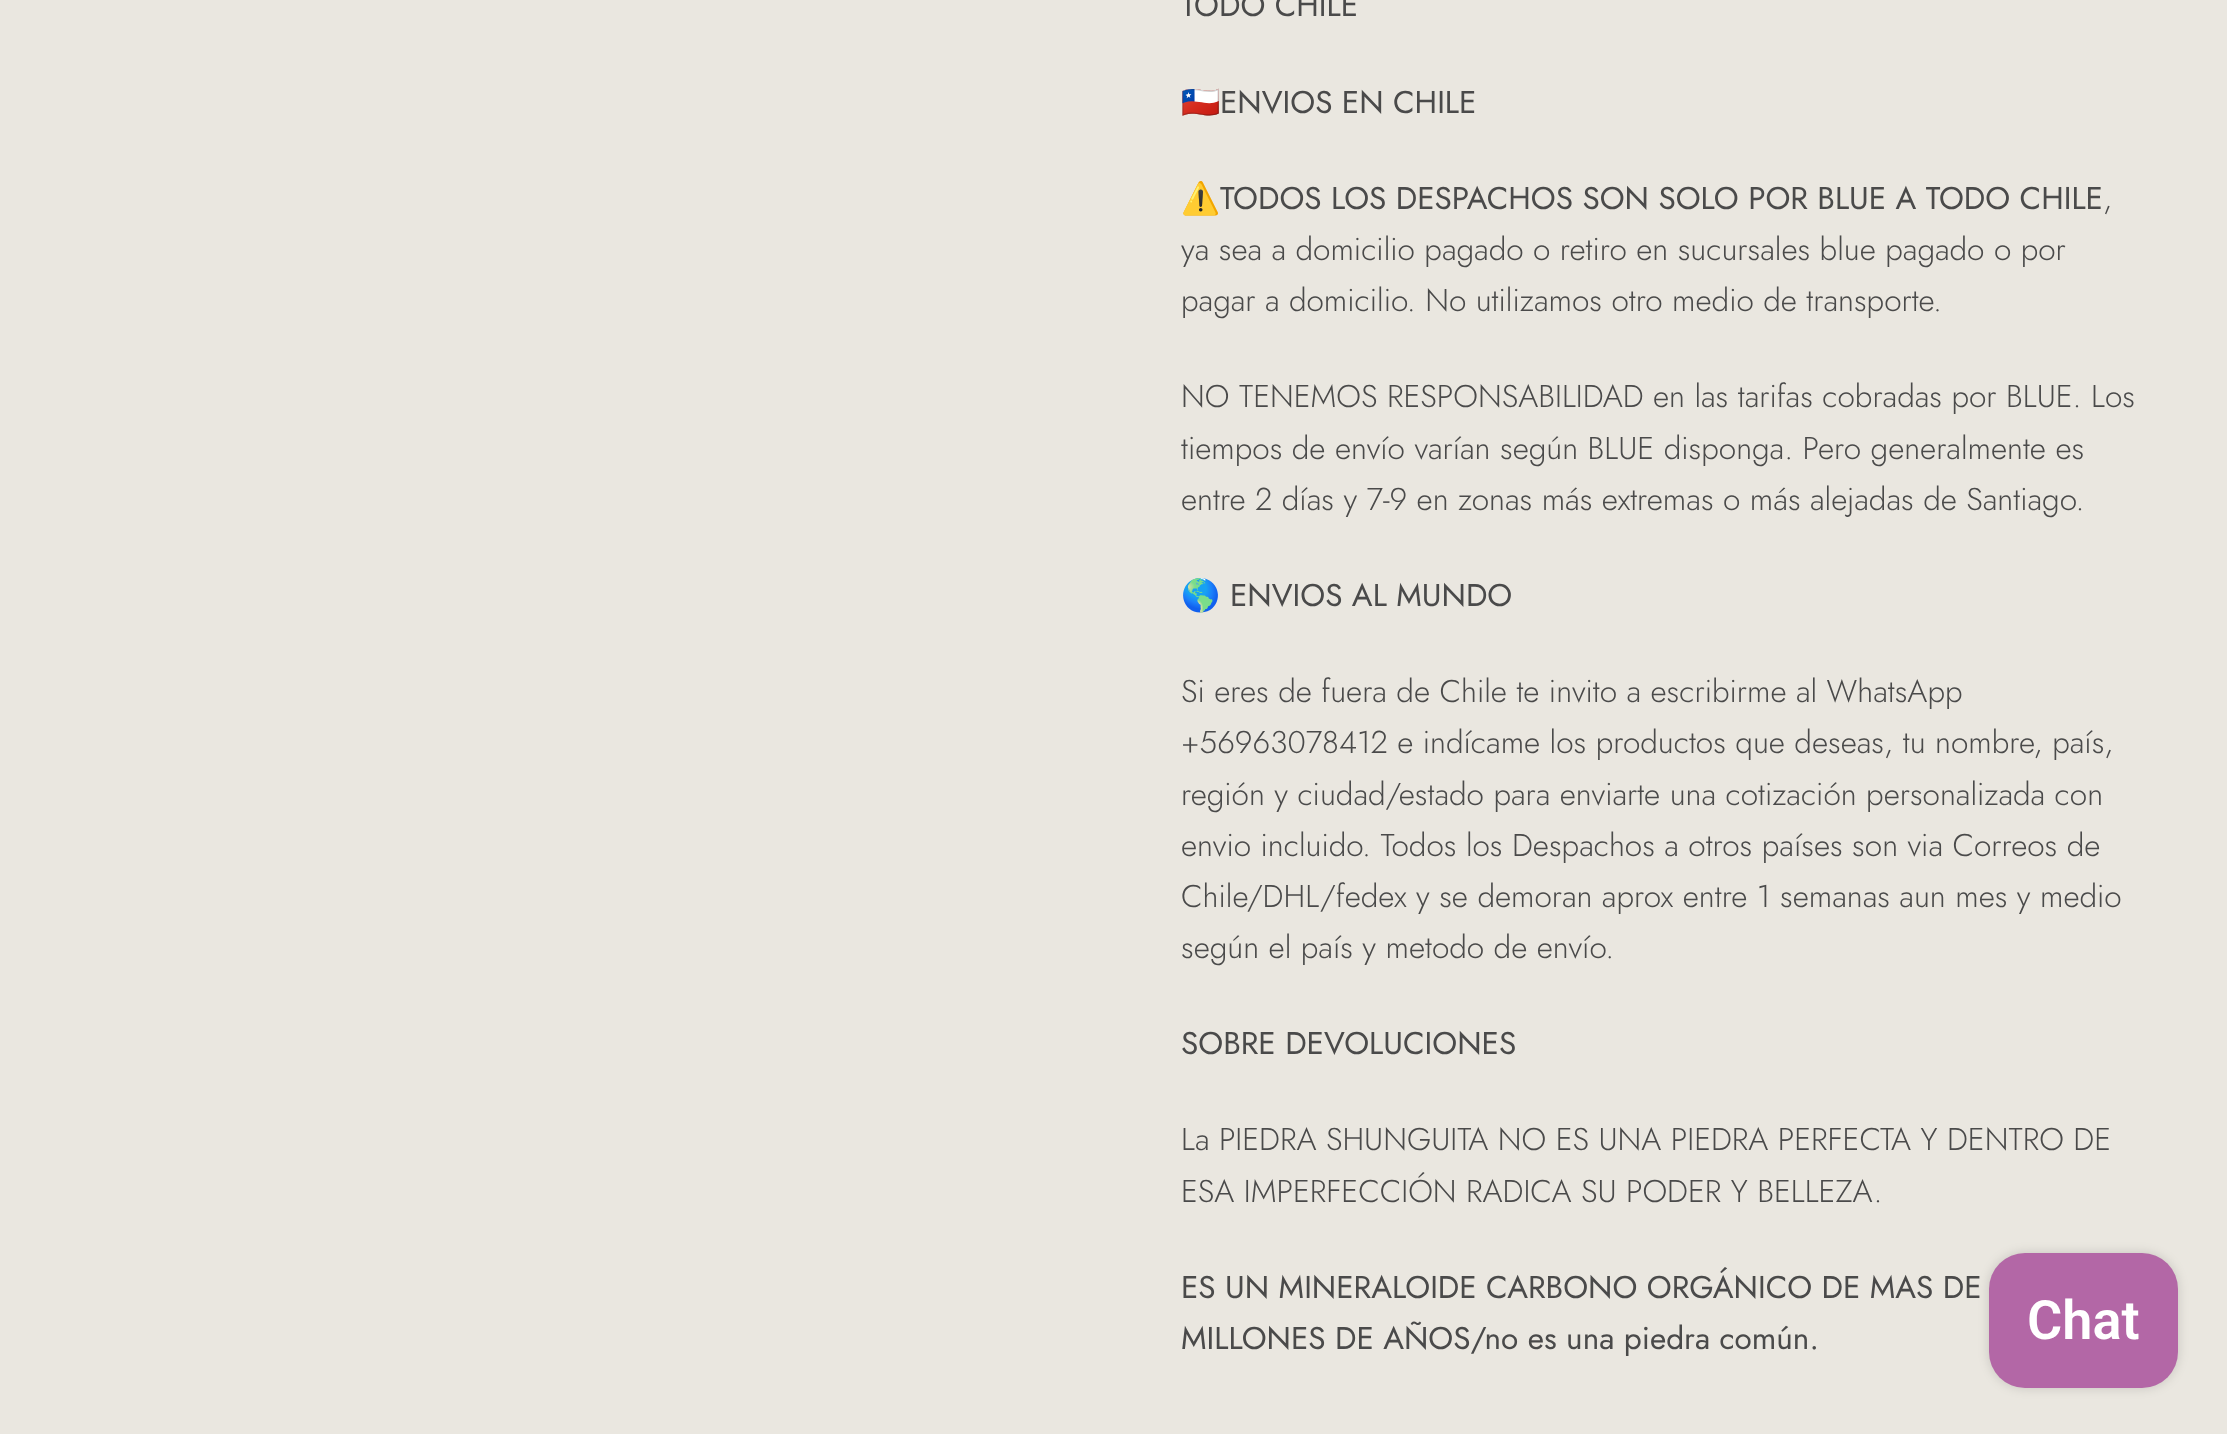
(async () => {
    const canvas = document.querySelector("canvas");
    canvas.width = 2227;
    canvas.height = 1434;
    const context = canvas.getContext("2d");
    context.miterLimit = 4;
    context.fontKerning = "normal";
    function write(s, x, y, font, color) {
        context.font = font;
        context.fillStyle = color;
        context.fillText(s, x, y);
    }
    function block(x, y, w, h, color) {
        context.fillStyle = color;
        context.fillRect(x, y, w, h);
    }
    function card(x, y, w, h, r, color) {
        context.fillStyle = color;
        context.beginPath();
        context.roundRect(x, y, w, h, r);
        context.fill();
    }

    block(0, 0, 2227, 1434, "rgb(234, 231, 224)");
    write("TODO CHILE", 1181, 16, "31.5px Jost", "rgb(74, 74, 74)");
    write("🇨🇱", 1181, 113, "31.5px Noto Color Emoji", "rgb(74, 74, 74)");
    write("ENVIOS EN CHILE", 1220, 113, "31.5px Jost", "rgb(74, 74, 74)");
    write("⚠️", 1181, 209, "31.5px Noto Color Emoji", "rgb(74, 74, 74)");
    write("TODOS LOS DESPACHOS SON SOLO POR BLUE A TODO CHILE", 1220, 209, "31.5px Jost", "rgb(74, 74, 74)");
    write(",", 2103, 209, "300 31.5px Jost", "rgb(74, 74, 74)");
    write("ya sea a domicilio pagado o retiro en sucursales blue pagado o por", 1181, 260, "300 31.5px Jost", "rgb(74, 74, 74)");
    write("pagar a domicilio. No utilizamos otro medio de transporte.", 1181, 311, "300 31.5px Jost", "rgb(74, 74, 74)");
    write("NO TENEMOS RESPONSABILIDAD en las tarifas cobradas por BLUE. Los", 1181, 407, "300 31.5px Jost", "rgb(74, 74, 74)");
    write("tiempos de envío varían según BLUE disponga. Pero generalmente es", 1181, 459, "300 31.5px Jost", "rgb(74, 74, 74)");
    write("entre 2 días y 7-9 en zonas más extremas o más alejadas de Santiago.", 1181, 510, "300 31.5px Jost", "rgb(74, 74, 74)");
    write("🌎", 1181, 606, "31.5px Noto Color Emoji", "rgb(74, 74, 74)");
    write("ENVIOS AL MUNDO", 1230, 606, "31.5px Jost", "rgb(74, 74, 74)");
    write("Si eres de fuera de Chile te invito a escribirme al WhatsApp", 1181, 702, "300 31.5px Jost", "rgb(74, 74, 74)");
    write("+56963078412 e indícame los productos que deseas, tu nombre, país,", 1181, 753, "300 31.5px Jost", "rgb(74, 74, 74)");
    write("región y ciudad/estado para enviarte una cotización personalizada con", 1181, 805, "300 31.5px Jost", "rgb(74, 74, 74)");
    write("envio incluido. Todos los Despachos a otros países son via Correos de", 1181, 856, "300 31.5px Jost", "rgb(74, 74, 74)");
    write("Chile/DHL/fedex y se demoran aprox entre 1 semanas aun mes y medio", 1181, 907, "300 31.5px Jost", "rgb(74, 74, 74)");
    write("según el país y metodo de envío.", 1181, 958, "300 31.5px Jost", "rgb(74, 74, 74)");
    write("SOBRE DEVOLUCIONES", 1181, 1054, "31.5px Jost", "rgb(74, 74, 74)");
    write("La PIEDRA SHUNGUITA NO ES UNA PIEDRA PERFECTA Y DENTRO DE", 1181, 1150, "300 31.5px Jost", "rgb(74, 74, 74)");
    write("ESA IMPERFECCIÓN RADICA SU PODER Y BELLEZA.", 1181, 1202, "300 31.5px Jost", "rgb(74, 74, 74)");
    write("ES UN MINERALOIDE CARBONO ORGÁNICO DE MAS DE", 1181, 1298, "31.5px Jost", "rgb(74, 74, 74)");
    write("MILLONES DE AÑOS/no es una piedra común.", 1181, 1349, "31.5px Jost", "rgb(74, 74, 74)");
    context.fillStyle = "rgba(0, 0, 0, 0.15)";
    context.filter = "blur(5.5px)";
    context.beginPath();
    context.roundRect(1989, 1253, 189, 135, 36);
    context.fill();
    context.filter = "none";
    card(1989, 1253, 189, 135, 36, "rgb(179, 103, 166)");
    write("Chat", 2027, 1339, "600 54px Roboto", "rgb(255, 255, 255)");
})();
